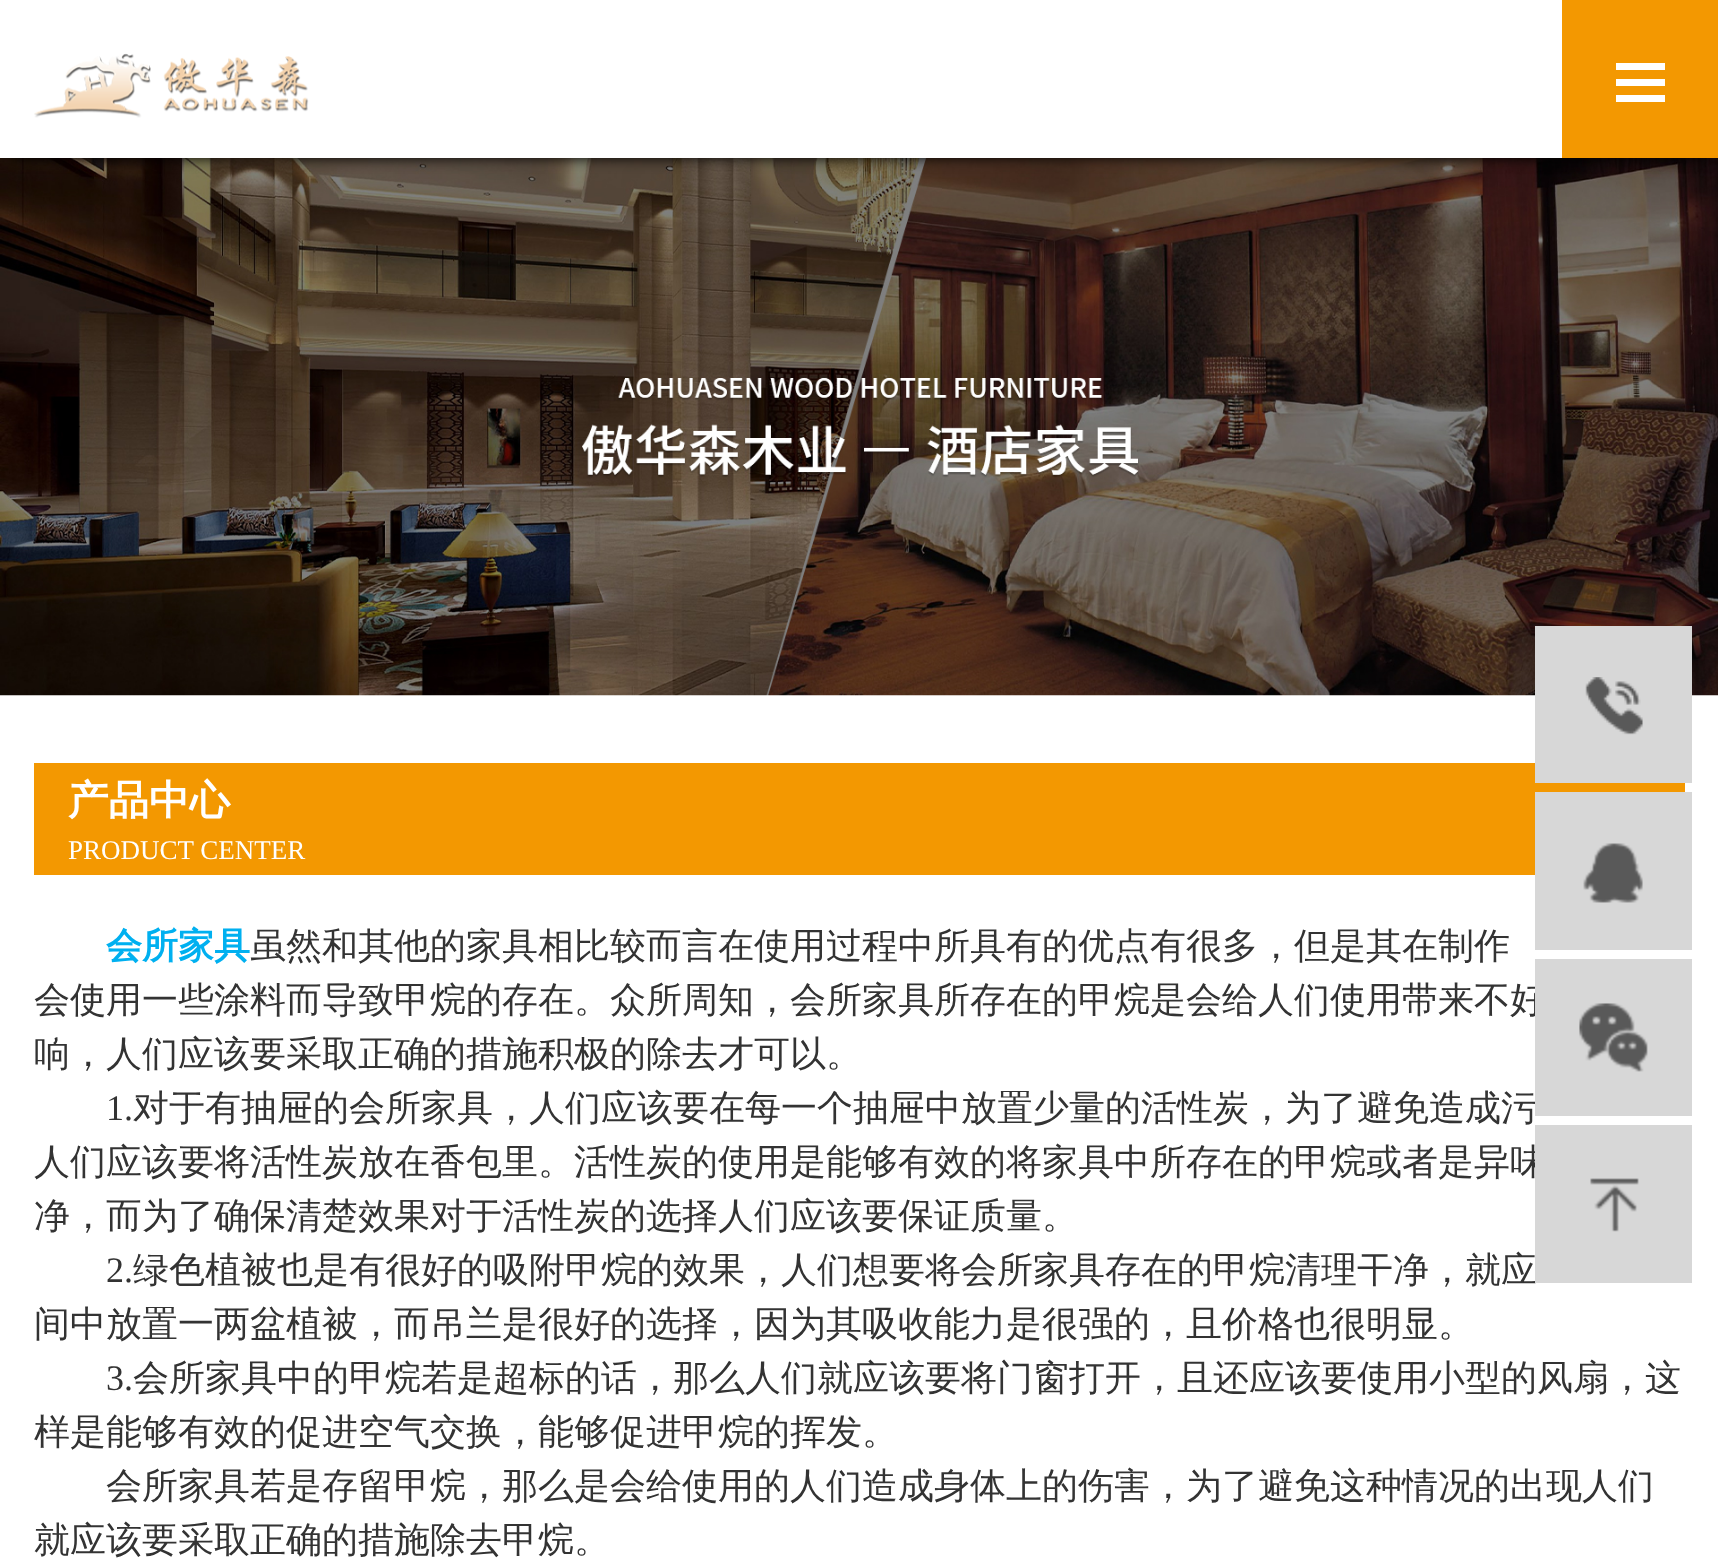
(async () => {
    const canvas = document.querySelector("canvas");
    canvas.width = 1718;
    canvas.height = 1566;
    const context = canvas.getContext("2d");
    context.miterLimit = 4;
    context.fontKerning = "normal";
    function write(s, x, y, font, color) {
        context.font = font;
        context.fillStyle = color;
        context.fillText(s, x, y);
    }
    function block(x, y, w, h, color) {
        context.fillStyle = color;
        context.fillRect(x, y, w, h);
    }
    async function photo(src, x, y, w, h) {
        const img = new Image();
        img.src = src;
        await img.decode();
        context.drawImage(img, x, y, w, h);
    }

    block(0, 0, 1718, 1566, "rgb(255, 255, 255)");
    await photo("media/2.png", 0, 158, 1718, 538);
    context.fillStyle = "rgb(0, 0, 0)";
    context.filter = "blur(7px)";
    context.beginPath();
    context.rect(11, 23, 1697, 135);
    context.fill();
    context.filter = "none";
    block(0, 7, 1562, 151, "rgb(255, 255, 255)");
    await photo("media/1.png", 34, 53, 275, 65);
    block(1562, 0, 156, 158, "rgb(243, 152, 1)");
    block(1616, 63, 49, 7, "rgb(255, 255, 255)");
    block(1616, 79, 49, 7, "rgb(255, 255, 255)");
    block(1616, 95, 49, 7, "rgb(255, 255, 255)");
    block(34, 763, 1651, 112, "rgb(243, 152, 1)");
    block(1535, 626, 157, 157, "rgb(215, 215, 215)");
    await photo("media/3.png", 1585, 677, 58, 58);
    block(1535, 792, 157, 158, "rgb(215, 215, 215)");
    await photo("media/4.png", 1583, 843, 60, 60);
    write("会使用一些涂料而导致甲烷的存在。众所周知，会所家具所存在的甲烷是会给人们使用带来不好", 34, 1012, "500 36px WenQuanYi Zen Hei", "rgb(51, 51, 51)");
    write("对于有抽屉的会所家具，人们应该要在每一个抽屉中放置少量的活性炭，为了避免造成污", 133, 1120, "500 36px WenQuanYi Zen Hei", "rgb(51, 51, 51)");
    block(1535, 959, 157, 157, "rgb(215, 215, 215)");
    await photo("media/5.png", 1579, 1003, 69, 69);
    write("人们应该要将活性炭放在香包里。活性炭的使用是能够有效的将家具中所存在的甲烷或者是异味", 34, 1174, "500 36px WenQuanYi Zen Hei", "rgb(51, 51, 51)");
    write("绿色植被也是有很好的吸附甲烷的效果，人们想要将会所家具存在的甲烷清理干净，就应", 133, 1282, "500 36px WenQuanYi Zen Hei", "rgb(51, 51, 51)");
    block(1535, 1125, 157, 158, "rgb(215, 215, 215)");
    await photo("media/6.png", 1590, 1178, 49, 54);
    write("产品中心", 68, 814, "bold 40.5px WenQuanYi Zen Hei", "rgb(255, 255, 255)");
    write("PRODUCT CENTER", 68, 859, "27px Liberation Serif", "rgb(255, 255, 255)");
    write("会所家具", 106, 958, "bold 36px WenQuanYi Zen Hei", "rgb(0, 176, 240)");
    write("虽然和其他的家具相比较而言在使用过程中所具有的优点有很多，但是其在制作", 250, 958, "500 36px WenQuanYi Zen Hei", "rgb(51, 51, 51)");
    write("响，人们应该要采取正确的措施积极的除去才可以。", 34, 1066, "500 36px WenQuanYi Zen Hei", "rgb(51, 51, 51)");
    write("1.", 106, 1120, "36px Liberation Serif", "rgb(51, 51, 51)");
    write("净，而为了确保清楚效果对于活性炭的选择人们应该要保证质量。", 34, 1228, "500 36px WenQuanYi Zen Hei", "rgb(51, 51, 51)");
    write("2.", 106, 1282, "36px Liberation Serif", "rgb(51, 51, 51)");
    write("间中放置一两盆植被，而吊兰是很好的选择，因为其吸收能力是很强的，且价格也很明显。", 34, 1336, "500 36px WenQuanYi Zen Hei", "rgb(51, 51, 51)");
    write("3.", 106, 1390, "36px Liberation Serif", "rgb(51, 51, 51)");
    write("会所家具中的甲烷若是超标的话，那么人们就应该要将门窗打开，且还应该要使用小型的风扇，这", 133, 1390, "500 36px WenQuanYi Zen Hei", "rgb(51, 51, 51)");
    write("样是能够有效的促进空气交换，能够促进甲烷的挥发。", 34, 1444, "500 36px WenQuanYi Zen Hei", "rgb(51, 51, 51)");
    write("会所家具若是存留甲烷，那么是会给使用的人们造成身体上的伤害，为了避免这种情况的出现人们", 106, 1498, "500 36px WenQuanYi Zen Hei", "rgb(51, 51, 51)");
    write("就应该要采取正确的措施除去甲烷。", 34, 1552, "500 36px WenQuanYi Zen Hei", "rgb(51, 51, 51)");
})();
